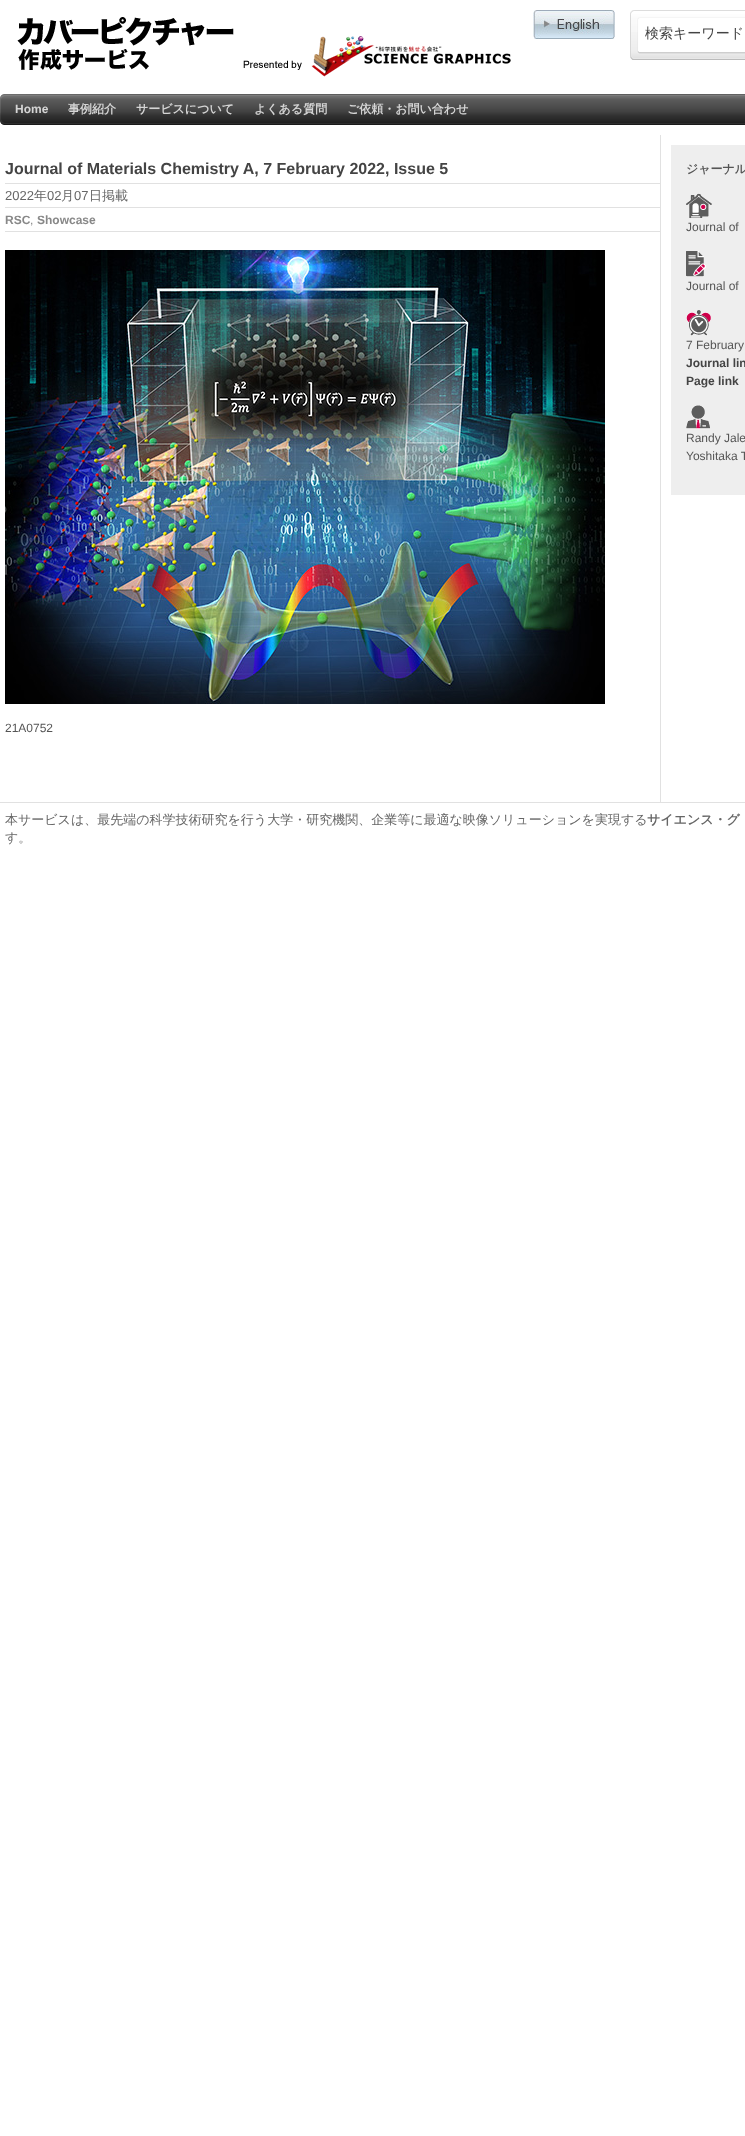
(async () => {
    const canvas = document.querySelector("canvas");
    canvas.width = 745;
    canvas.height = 2136;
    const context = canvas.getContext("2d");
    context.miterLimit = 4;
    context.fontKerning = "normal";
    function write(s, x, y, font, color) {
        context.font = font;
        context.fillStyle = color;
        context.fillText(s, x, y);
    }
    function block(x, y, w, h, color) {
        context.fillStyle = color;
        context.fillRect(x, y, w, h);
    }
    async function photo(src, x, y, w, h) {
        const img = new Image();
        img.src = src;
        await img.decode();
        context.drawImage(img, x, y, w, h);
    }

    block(0, 0, 745, 2136, "rgb(255, 255, 255)");
    await photo("media/1.png", 17, 17, 494, 60);
    await photo("media/2.png", 533, 10, 82, 29);
    await photo("media/3.png", 630, 10, 115, 50);
    write("検索キーワード", 645, 38, "500 14px WenQuanYi Zen Hei", "rgb(68, 68, 68)");
    await photo("media/4.png", 0, 94, 745, 31);
    write("Home", 15, 113, "bold 12px Liberation Sans", "rgb(213, 213, 213)");
    write("事例紹介", 68, 113, "bold 12px WenQuanYi Zen Hei", "rgb(213, 213, 213)");
    write("サービスについて", 136, 113, "bold 12px WenQuanYi Zen Hei", "rgb(213, 213, 213)");
    write("よくある質問", 254, 113, "bold 12px WenQuanYi Zen Hei", "rgb(213, 213, 213)");
    write("ご依頼・お問い合わせ", 347, 113, "bold 12px WenQuanYi Zen Hei", "rgb(213, 213, 213)");
    block(660, 135, 1, 667, "rgb(225, 225, 225)");
    block(5, 183, 655, 1, "rgb(225, 225, 225)");
    write("Journal of Materials Chemistry A, 7 February 2022, Issue 5", 5, 174, "bold 16px Liberation Sans", "rgb(68, 68, 68)");
    block(5, 207, 655, 1, "rgb(225, 225, 225)");
    write("2022", 5, 200, "13px Liberation Sans", "rgb(102, 102, 102)");
    write("年", 34, 200, "500 13px WenQuanYi Zen Hei", "rgb(102, 102, 102)");
    write("02", 47, 200, "13px Liberation Sans", "rgb(102, 102, 102)");
    write("月", 61, 200, "500 13px WenQuanYi Zen Hei", "rgb(102, 102, 102)");
    write("07", 74, 200, "13px Liberation Sans", "rgb(102, 102, 102)");
    write("日掲載", 89, 200, "500 13px WenQuanYi Zen Hei", "rgb(102, 102, 102)");
    block(5, 231, 655, 1, "rgb(225, 225, 225)");
    write("RSC", 5, 224, "bold 12px Liberation Sans", "rgb(136, 136, 136)");
    write(",", 30, 224, "12px Liberation Sans", "rgb(136, 136, 136)");
    write("Showcase", 37, 224, "bold 12px Liberation Sans", "rgb(136, 136, 136)");
    await photo("media/5.png", 5, 250, 600, 454);
    write("21A0752", 5, 732, "12px Liberation Sans", "rgb(85, 85, 85)");
    block(671, 145, 74, 350, "rgb(238, 238, 238)");
    write("ジャーナル", 686, 173, "bold 12px WenQuanYi Zen Hei", "rgb(85, 85, 85)");
    await photo("media/6.png", 686, 193, 26, 25);
    write("Journal of", 686, 231, "12px Liberation Sans", "rgb(85, 85, 85)");
    await photo("media/7.png", 686, 251, 20, 26);
    write("Journal of", 686, 290, "12px Liberation Sans", "rgb(85, 85, 85)");
    await photo("media/8.png", 686, 310, 25, 26);
    write("7 February", 686, 349, "12px Liberation Sans", "rgb(85, 85, 85)");
    write("Journal lin", 686, 367, "bold 12px Liberation Sans", "rgb(68, 68, 68)");
    write("Page link", 686, 385, "bold 12px Liberation Sans", "rgb(68, 68, 68)");
    await photo("media/9.png", 686, 405, 24, 24);
    write("Randy Jale", 686, 442, "12px Liberation Sans", "rgb(85, 85, 85)");
    write("Yoshitaka T", 686, 460, "12px Liberation Sans", "rgb(85, 85, 85)");
    block(0, 802, 745, 1, "rgb(225, 225, 225)");
    write("本サービスは、最先端の科学技術研究を行う大学・研究機関、企業等に最適な映像ソリューションを実現する", 5, 824, "500 13px WenQuanYi Zen Hei", "rgb(102, 102, 102)");
    write("サイエンス・グ", 647, 824, "bold 13px WenQuanYi Zen Hei", "rgb(102, 102, 102)");
    write("す。", 5, 842, "500 13px WenQuanYi Zen Hei", "rgb(102, 102, 102)");
})();
